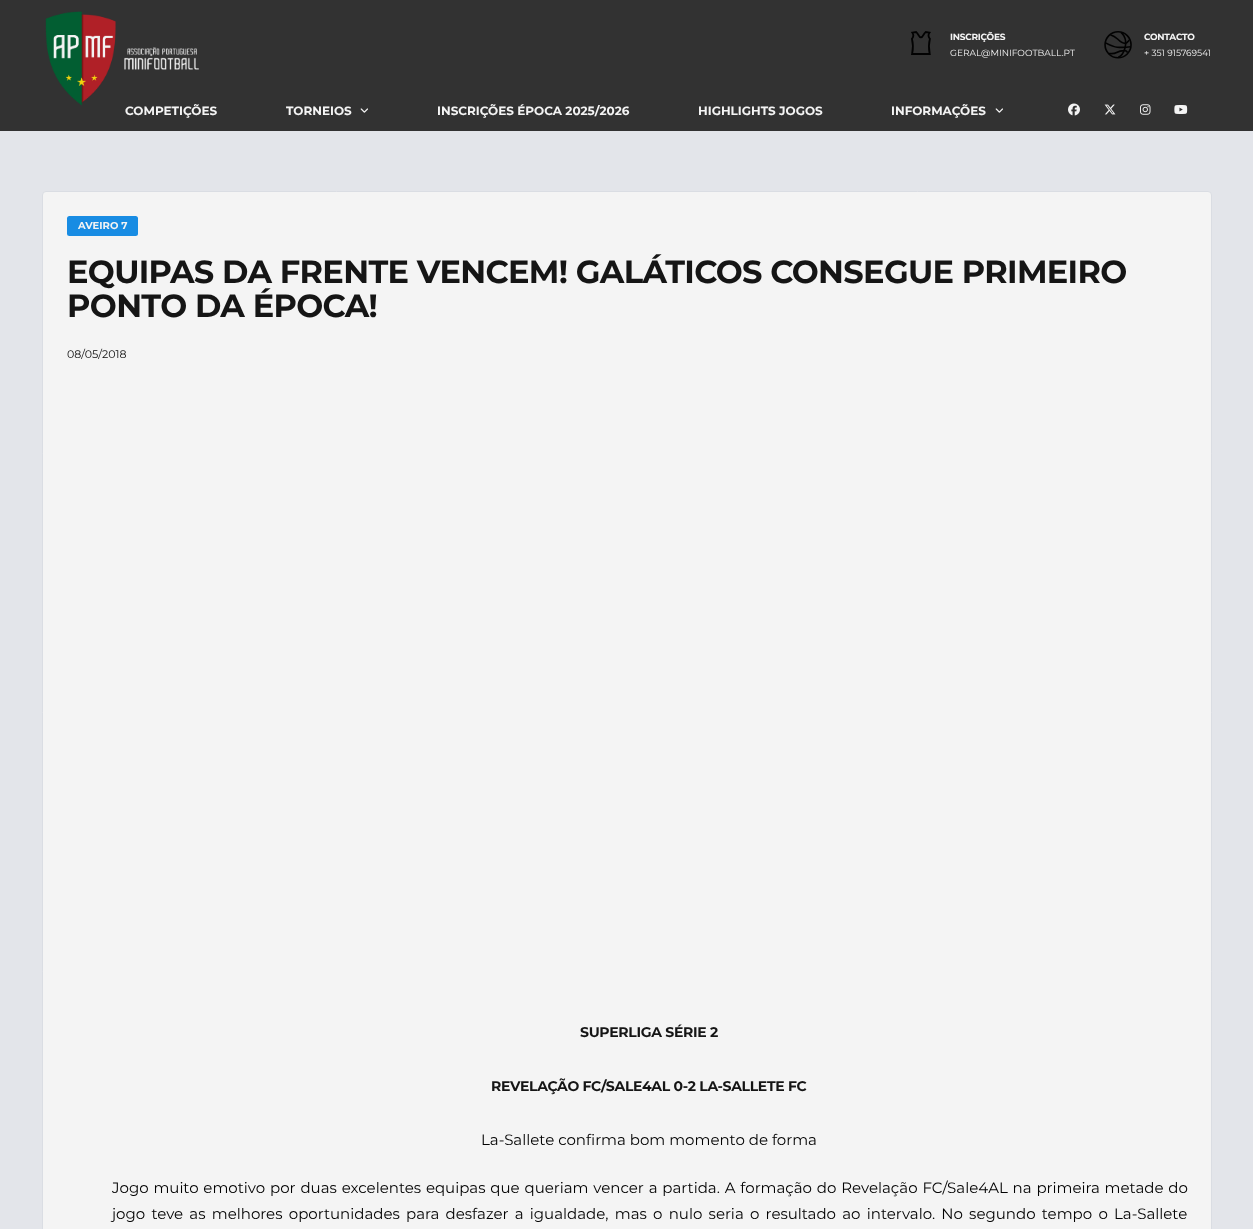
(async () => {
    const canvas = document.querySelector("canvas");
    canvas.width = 1253;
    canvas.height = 1229;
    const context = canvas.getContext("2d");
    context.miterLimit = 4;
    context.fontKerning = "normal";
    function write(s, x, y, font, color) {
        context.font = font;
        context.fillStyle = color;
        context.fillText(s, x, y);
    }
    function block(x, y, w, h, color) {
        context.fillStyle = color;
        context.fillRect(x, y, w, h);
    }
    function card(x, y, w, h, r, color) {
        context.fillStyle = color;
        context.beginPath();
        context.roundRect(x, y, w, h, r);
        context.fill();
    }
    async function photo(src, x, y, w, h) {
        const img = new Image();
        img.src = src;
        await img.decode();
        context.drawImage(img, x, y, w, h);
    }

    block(0, 0, 1253, 1229, "rgb(227, 229, 234)");
    block(0, 0, 1253, 131, "rgb(50, 50, 50)");
    await photo("media/1.png", 911, 31, 20, 24);
    context.letterSpacing = "-0.25px";
    write("INSCRIÇÕES", 950, 40, "bold 9px Montserrat", "rgb(244, 244, 244)");
    context.letterSpacing = "0px";
    write("GERAL@MINIFOOTBALL.PT", 950, 56, "100 9px Montserrat", "rgb(244, 244, 244)");
    await photo("media/2.png", 1104, 31, 28, 28);
    context.letterSpacing = "-0.25px";
    write("CONTACTO", 1144, 40, "bold 9px Montserrat", "rgb(244, 244, 244)");
    context.letterSpacing = "0px";
    write("+ 351 915769541", 1144, 56, "100 9px Montserrat", "rgb(244, 244, 244)");
    write("COMPETIÇÕES", 125, 115, "bold 12px Montserrat", "rgb(244, 244, 244)");
    await photo("media/3.png", 45, 11, 154, 95);
    write("TORNEIOS", 286, 115, "bold 12px Montserrat", "rgb(244, 244, 244)");
    await photo("media/4.png", 360, 108, 8, 5);
    write("INSCRIÇÕES ÉPOCA 2025/2026", 437, 115, "bold 12px Montserrat", "rgb(244, 244, 244)");
    write("HIGHLIGHTS JOGOS", 698, 115, "bold 12px Montserrat", "rgb(244, 244, 244)");
    write("INFORMAÇÕES", 891, 115, "bold 12px Montserrat", "rgb(244, 244, 244)");
    await photo("media/4.png", 995, 108, 8, 5);
    await photo("media/5.png", 1068, 103, 12, 13);
    await photo("media/6.png", 1104, 104, 12, 11);
    await photo("media/7.png", 1140, 104, 11, 11);
    await photo("media/8.png", 1174, 105, 14, 9);
    context.beginPath();
    context.roundRect(42.5, 191.5, 1169, 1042, 3.5);
    context.fill();
    context.strokeStyle = "rgb(218, 221, 227)";
    context.stroke();
    card(67, 216, 71, 20, 2.5, "rgb(24, 140, 227)");
    write("AVEIRO 7", 78, 229, "bold 10px Montserrat", "rgb(244, 244, 244)");
    context.letterSpacing = "-0.65px";
    write("EQUIPAS DA FRENTE VENCEM! GALÁTICOS CONSEGUE PRIMEIRO", 67, 283, "bold 32px Montserrat", "rgb(21, 21, 21)");
    write("PONTO DA ÉPOCA!", 67, 317, "bold 32px Montserrat", "rgb(21, 21, 21)");
    context.letterSpacing = "0px";
    write("08/05/2018", 67, 358, "100 11px Montserrat", "rgb(11, 11, 11)");
    context.letterSpacing = "-0.3px";
    write("SUPERLIGA SÉRIE 2", 580, 1037, "bold 14px Montserrat", "rgb(21, 21, 21)");
    write("REVELAÇÃO FC/SALE4AL 0-2 LA-SALLETE FC", 491, 1091, "bold 14px Montserrat", "rgb(21, 21, 21)");
    context.letterSpacing = "0px";
    write("La-Sallete confirma bom momento de forma", 481, 1145, "100 15px Montserrat", "rgb(2, 2, 2)");
    context.wordSpacing = "0.9px";
    write("Jogo muito emotivo por duas excelentes equipas que queriam vencer a partida. A formação do Revelação FC/Sale4AL na primeira metade do", 112, 1193, "100 15px Montserrat", "rgb(2, 2, 2)");
    context.wordSpacing = "2.3px";
    write("jogo teve as melhores oportunidades para desfazer a igualdade, mas o nulo seria o resultado ao intervalo. No segundo tempo o La-Sallete", 112, 1219, "100 15px Montserrat", "rgb(2, 2, 2)");
})();
